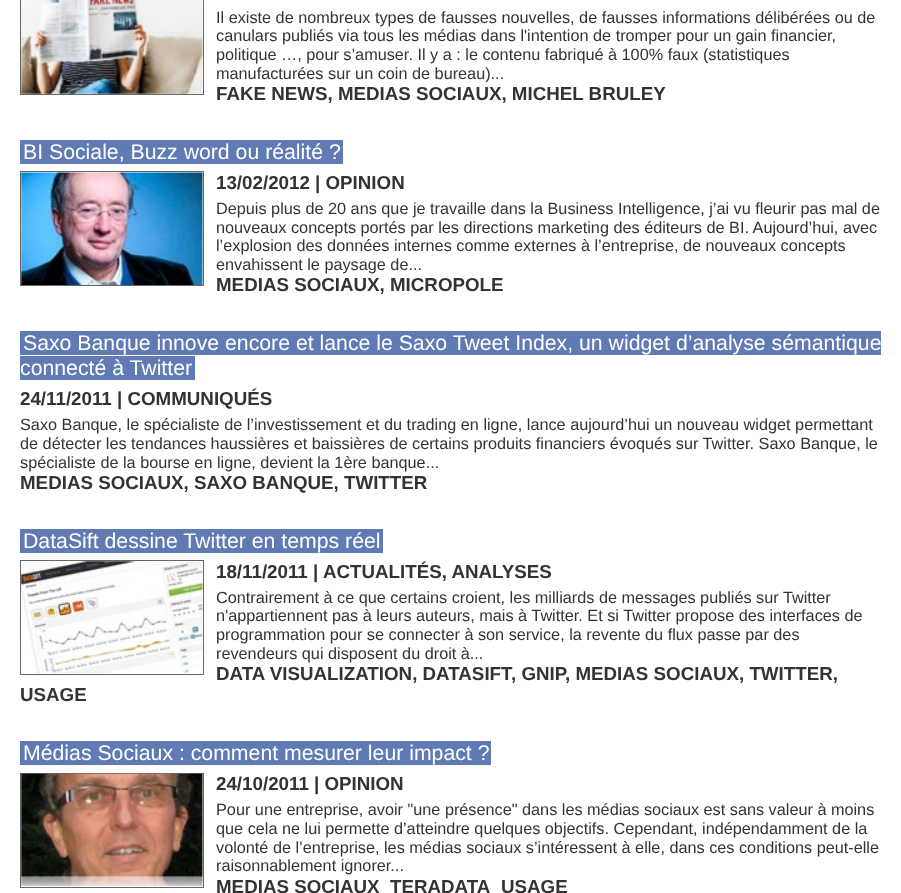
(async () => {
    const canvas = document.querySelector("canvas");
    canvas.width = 901;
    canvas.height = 893;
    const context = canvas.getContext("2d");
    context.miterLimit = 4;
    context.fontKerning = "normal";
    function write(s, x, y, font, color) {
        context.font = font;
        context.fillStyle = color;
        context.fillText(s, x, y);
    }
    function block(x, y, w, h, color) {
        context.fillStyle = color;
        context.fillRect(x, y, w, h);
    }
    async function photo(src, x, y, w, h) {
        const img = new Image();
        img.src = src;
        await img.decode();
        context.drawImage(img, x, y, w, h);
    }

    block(0, 0, 901, 893, "rgb(255, 255, 255)");
    context.strokeStyle = "rgb(102, 102, 102)";
    context.strokeRect(20.5, -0.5, 183, 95);
    await photo("media/1.png", 21, 0, 182, 94);
    write("Il existe de nombreux types de fausses nouvelles, de fausses informations délibérées ou de", 216, 23, "16.25px Liberation Sans", "rgb(51, 51, 51)");
    write("canulars publiés via tous les médias dans l'intention de tromper pour un gain financier,", 216, 41, "16.25px Liberation Sans", "rgb(51, 51, 51)");
    write("politique …, pour s’amuser. Il y a : le contenu fabriqué à 100% faux (statistiques", 216, 60, "16.25px Liberation Sans", "rgb(51, 51, 51)");
    write("manufacturées sur un coin de bureau)...", 216, 79, "16.25px Liberation Sans", "rgb(51, 51, 51)");
    write("FAKE NEWS, MEDIAS SOCIAUX, MICHEL BRULEY", 216, 100, "bold 18.75px Liberation Sans", "rgb(51, 51, 51)");
    block(20, 140, 323, 24, "rgb(96, 123, 180)");
    write("BI Sociale, Buzz word ou réalité ?", 23, 159, "21.25px Liberation Sans", "rgb(255, 255, 255)");
    context.strokeRect(20.5, 171.5, 183, 114);
    await photo("media/2.png", 21, 172, 182, 113);
    write("13/02/2012 | OPINION", 216, 189, "bold 18.75px Liberation Sans", "rgb(51, 51, 51)");
    write("Depuis plus de 20 ans que je travaille dans la Business Intelligence, j’ai vu fleurir pas mal de", 216, 214, "16.25px Liberation Sans", "rgb(51, 51, 51)");
    write("nouveaux concepts portés par les directions marketing des éditeurs de BI. Aujourd’hui, avec", 216, 233, "16.25px Liberation Sans", "rgb(51, 51, 51)");
    write("l’explosion des données internes comme externes à l’entreprise, de nouveaux concepts", 216, 251, "16.25px Liberation Sans", "rgb(51, 51, 51)");
    write("envahissent le paysage de...", 216, 270, "16.25px Liberation Sans", "rgb(51, 51, 51)");
    write("MEDIAS SOCIAUX, MICROPOLE", 216, 291, "bold 18.75px Liberation Sans", "rgb(51, 51, 51)");
    block(20, 331, 861, 24, "rgb(96, 123, 180)");
    write("Saxo Banque innove encore et lance le Saxo Tweet Index, un widget d’analyse sémantique", 23, 350, "21.25px Liberation Sans", "rgb(255, 255, 255)");
    block(20, 356, 175, 24, "rgb(96, 123, 180)");
    write("connecté à Twitter", 20, 375, "21.25px Liberation Sans", "rgb(255, 255, 255)");
    write("24/11/2011 | COMMUNIQUÉS", 20, 405, "bold 18.75px Liberation Sans", "rgb(51, 51, 51)");
    write("Saxo Banque, le spécialiste de l’investissement et du trading en ligne, lance aujourd’hui un nouveau widget permettant", 20, 430, "16.25px Liberation Sans", "rgb(51, 51, 51)");
    write("de détecter les tendances haussières et baissières de certains produits financiers évoqués sur Twitter. Saxo Banque, le", 20, 449, "16.25px Liberation Sans", "rgb(51, 51, 51)");
    write("spécialiste de la bourse en ligne, devient la 1ère banque...", 20, 468, "16.25px Liberation Sans", "rgb(51, 51, 51)");
    write("MEDIAS SOCIAUX, SAXO BANQUE, TWITTER", 20, 489, "bold 18.75px Liberation Sans", "rgb(51, 51, 51)");
    block(20, 529, 363, 24, "rgb(96, 123, 180)");
    write("DataSift dessine Twitter en temps réel", 23, 548, "21.25px Liberation Sans", "rgb(255, 255, 255)");
    context.strokeRect(20.5, 560.5, 183, 114);
    await photo("media/3.png", 21, 561, 182, 113);
    write("18/11/2011", 216, 578, "bold 18.75px Liberation Sans", "rgb(51, 51, 51)");
    write("|", 313, 578, "bold 18.75px Liberation Sans", "rgb(51, 51, 51)");
    write("ACTUALITÉS, ANALYSES", 323, 578, "bold 18.75px Liberation Sans", "rgb(51, 51, 51)");
    write("Contrairement à ce que certains croient, les milliards de messages publiés sur Twitter", 216, 603, "16.25px Liberation Sans", "rgb(51, 51, 51)");
    write("n'appartiennent pas à leurs auteurs, mais à Twitter. Et si Twitter propose des interfaces de", 216, 621, "16.25px Liberation Sans", "rgb(51, 51, 51)");
    write("programmation pour se connecter à son service, la revente du flux passe par des", 216, 640, "16.25px Liberation Sans", "rgb(51, 51, 51)");
    write("revendeurs qui disposent du droit à...", 216, 659, "16.25px Liberation Sans", "rgb(51, 51, 51)");
    write("DATA VISUALIZATION, DATASIFT", 216, 680, "bold 18.75px Liberation Sans", "rgb(51, 51, 51)");
    write(", GNIP", 511, 680, "bold 18.75px Liberation Sans", "rgb(51, 51, 51)");
    write(", MEDIAS SOCIAUX, TWITTER,", 565, 680, "bold 18.75px Liberation Sans", "rgb(51, 51, 51)");
    write("USAGE", 20, 701, "bold 18.75px Liberation Sans", "rgb(51, 51, 51)");
    block(20, 741, 471, 24, "rgb(96, 123, 180)");
    write("Médias Sociaux : comment mesurer leur impact ?", 23, 760, "21.25px Liberation Sans", "rgb(255, 255, 255)");
    context.strokeRect(20.5, 773.5, 183, 114);
    await photo("media/4.png", 21, 773, 182, 114);
    write("24/10/2011 | OPINION", 216, 790, "bold 18.75px Liberation Sans", "rgb(51, 51, 51)");
    write("Pour une entreprise, avoir \"une présence\" dans les médias sociaux est sans valeur à moins", 216, 815, "16.25px Liberation Sans", "rgb(51, 51, 51)");
    write("que cela ne lui permette d’atteindre quelques objectifs. Cependant, indépendamment de la", 216, 834, "16.25px Liberation Sans", "rgb(51, 51, 51)");
    write("volonté de l’entreprise, les médias sociaux s’intéressent à elle, dans ces conditions peut-elle", 216, 853, "16.25px Liberation Sans", "rgb(51, 51, 51)");
    write("raisonnablement ignorer...", 216, 871, "16.25px Liberation Sans", "rgb(51, 51, 51)");
    write("MEDIAS SOCIAUX", 216, 893, "bold 18.75px Liberation Sans", "rgb(51, 51, 51)");
    write("TERADATA", 390, 893, "bold 18.75px Liberation Sans", "rgb(51, 51, 51)");
    write("USAGE", 501, 893, "bold 18.75px Liberation Sans", "rgb(51, 51, 51)");
})();
